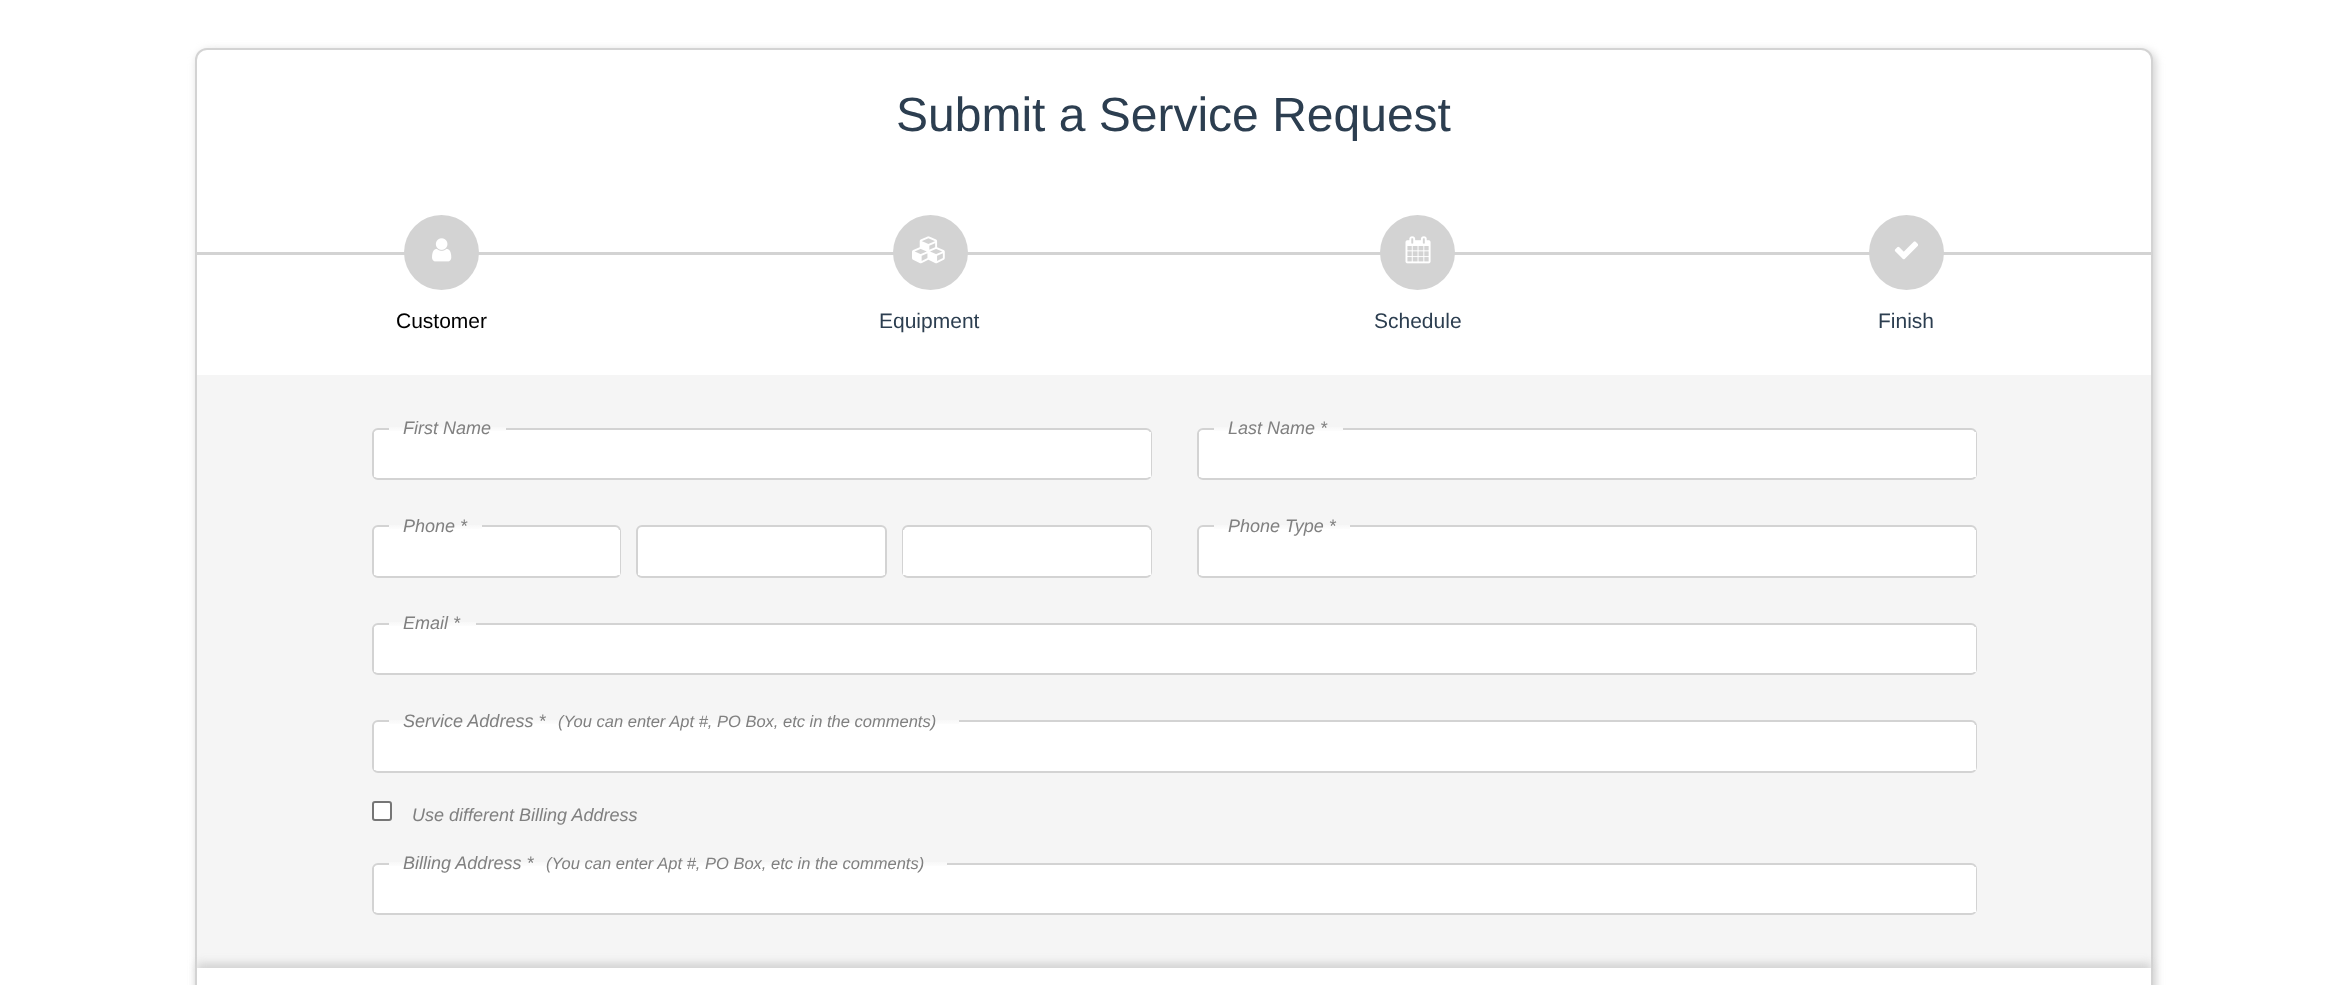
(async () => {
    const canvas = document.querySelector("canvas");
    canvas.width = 2347;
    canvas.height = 985;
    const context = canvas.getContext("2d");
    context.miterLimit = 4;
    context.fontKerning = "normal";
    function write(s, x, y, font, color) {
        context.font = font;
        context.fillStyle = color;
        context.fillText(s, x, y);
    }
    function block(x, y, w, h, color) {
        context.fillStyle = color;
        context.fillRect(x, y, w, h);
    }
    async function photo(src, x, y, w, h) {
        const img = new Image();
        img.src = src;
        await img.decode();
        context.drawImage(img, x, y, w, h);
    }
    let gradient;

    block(0, 0, 2347, 985, "rgb(255, 255, 255)");
    context.fillStyle = "rgb(211, 211, 211)";
    context.filter = "blur(4px)";
    context.beginPath();
    context.roundRect(197, 50, 1959, 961, 14);
    context.fill();
    context.filter = "none";
    context.fillStyle = "rgb(255, 255, 255)";
    context.beginPath();
    context.roundRect(196, 49, 1956, 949, 11);
    context.fill();
    context.strokeStyle = "rgb(211, 211, 211)";
    context.lineWidth = 2;
    context.stroke();
    write("Submit a Service Request", 896, 131, "48px Liberation Sans", "rgb(44, 62, 80)");
    block(197, 252, 1954, 3, "rgb(211, 211, 211)");
    context.beginPath();
    context.arc(441.5, 252.5, 37.5, 0, Math.PI * 2);
    context.fill();
    await photo("media/1.png", 432, 238, 20, 24);
    write("Customer", 396, 328, "21px Liberation Sans", "rgb(0, 0, 0)");
    context.fillStyle = "rgb(211, 211, 211)";
    context.beginPath();
    context.arc(930.5, 252.5, 37.5, 0, Math.PI * 2);
    context.fill();
    await photo("media/2.png", 912, 236, 33, 28);
    write("Equipment", 879, 328, "21px Liberation Sans", "rgb(44, 62, 80)");
    context.fillStyle = "rgb(211, 211, 211)";
    context.beginPath();
    context.arc(1417.5, 252.5, 37.5, 0, Math.PI * 2);
    context.fill();
    await photo("media/3.png", 1405, 236, 26, 28);
    write("Schedule", 1374, 328, "21px Liberation Sans", "rgb(44, 62, 80)");
    context.fillStyle = "rgb(211, 211, 211)";
    context.beginPath();
    context.arc(1906.5, 252.5, 37.5, 0, Math.PI * 2);
    context.fill();
    await photo("media/4.png", 1894, 241, 24, 19);
    write("Finish", 1878, 328, "21px Liberation Sans", "rgb(44, 62, 80)");
    block(197, 375, 1954, 593, "rgb(245, 245, 245)");
    context.fillStyle = "rgb(255, 255, 255)";
    context.beginPath();
    context.roundRect(373, 429, 778, 50, 5);
    context.fill();
    context.stroke();
    gradient = context.createLinearGradient(447, 414, 447, 441);
    gradient.addColorStop(0.4, "rgb(245, 245, 245)");
    gradient.addColorStop(0.7, "rgb(255, 255, 255)");
    gradient.addColorStop(1, "rgb(255, 255, 255)");
    context.fillStyle = gradient;
    context.fillRect(389, 427, 117, 4);
    block(374, 432, 777, 45, "rgb(255, 255, 255)");
    write("First Name", 403, 434, "italic 18px Liberation Sans", "rgb(128, 128, 128)");
    context.fillStyle = "rgb(255, 255, 255)";
    context.beginPath();
    context.roundRect(1198, 429, 778, 50, 5);
    context.fill();
    context.stroke();
    gradient = context.createLinearGradient(1278, 414, 1278, 441);
    gradient.addColorStop(0.4, "rgb(245, 245, 245)");
    gradient.addColorStop(0.7, "rgb(255, 255, 255)");
    gradient.addColorStop(1, "rgb(255, 255, 255)");
    context.fillStyle = gradient;
    context.fillRect(1214, 427, 129, 4);
    block(1199, 432, 777, 45, "rgb(255, 255, 255)");
    write("Last Name *", 1228, 434, "italic 18px Liberation Sans", "rgb(128, 128, 128)");
    context.fillStyle = "rgb(255, 255, 255)";
    context.beginPath();
    context.roundRect(373, 526, 247, 51, 5);
    context.fill();
    context.stroke();
    gradient = context.createLinearGradient(435, 512, 435, 539);
    gradient.addColorStop(0.4, "rgb(245, 245, 245)");
    gradient.addColorStop(0.7, "rgb(255, 255, 255)");
    gradient.addColorStop(1, "rgb(255, 255, 255)");
    context.fillStyle = gradient;
    context.fillRect(389, 525, 93, 4);
    block(374, 530, 246, 45, "rgb(255, 255, 255)");
    write("Phone *", 403, 532, "italic 18px Liberation Sans", "rgb(128, 128, 128)");
    context.fillStyle = "rgb(255, 255, 255)";
    context.beginPath();
    context.roundRect(637, 526, 249, 51, 5);
    context.fill();
    context.stroke();
    block(638, 573, 247, 2, "rgb(255, 255, 255)");
    context.beginPath();
    context.roundRect(903, 526, 248, 51, 5);
    context.fill();
    context.stroke();
    block(903, 530, 248, 45, "rgb(255, 255, 255)");
    context.beginPath();
    context.roundRect(1198, 526, 778, 51, 5);
    context.fill();
    context.stroke();
    gradient = context.createLinearGradient(1282, 512, 1282, 539);
    gradient.addColorStop(0.4, "rgb(245, 245, 245)");
    gradient.addColorStop(0.7, "rgb(255, 255, 255)");
    gradient.addColorStop(1, "rgb(255, 255, 255)");
    context.fillStyle = gradient;
    context.fillRect(1214, 525, 136, 4);
    block(1199, 530, 777, 45, "rgb(255, 255, 255)");
    write("Phone Type *", 1228, 532, "italic 18px Liberation Sans", "rgb(128, 128, 128)");
    context.fillStyle = "rgb(255, 255, 255)";
    context.beginPath();
    context.roundRect(373, 624, 1603, 50, 5);
    context.fill();
    context.stroke();
    gradient = context.createLinearGradient(432, 609, 432, 636);
    gradient.addColorStop(0.4, "rgb(245, 245, 245)");
    gradient.addColorStop(0.7, "rgb(255, 255, 255)");
    gradient.addColorStop(1, "rgb(255, 255, 255)");
    context.fillStyle = gradient;
    context.fillRect(389, 622, 87, 4);
    block(374, 627, 1602, 45, "rgb(255, 255, 255)");
    write("Email *", 403, 629, "italic 18px Liberation Sans", "rgb(128, 128, 128)");
    context.fillStyle = "rgb(255, 255, 255)";
    context.beginPath();
    context.roundRect(373, 721, 1603, 51, 5);
    context.fill();
    context.stroke();
    gradient = context.createLinearGradient(674, 707, 674, 734);
    gradient.addColorStop(0.4, "rgb(245, 245, 245)");
    gradient.addColorStop(0.7, "rgb(255, 255, 255)");
    gradient.addColorStop(1, "rgb(255, 255, 255)");
    context.fillStyle = gradient;
    context.fillRect(389, 720, 570, 4);
    block(374, 725, 1602, 45, "rgb(255, 255, 255)");
    write("Service Address *", 403, 727, "italic 18px Liberation Sans", "rgb(128, 128, 128)");
    write("(You can enter Apt #, PO Box, etc in the comments)", 558, 727, "italic 16.5px Liberation Sans", "rgb(128, 128, 128)");
    context.fillStyle = "rgb(255, 255, 255)";
    context.beginPath();
    context.roundRect(373, 802, 18, 18, 2);
    context.fill();
    context.strokeStyle = "rgb(118, 118, 118)";
    context.stroke();
    write("Use different Billing Address", 412, 821, "italic 18px Liberation Sans", "rgb(128, 128, 128)");
    context.fillStyle = "rgb(255, 255, 255)";
    context.beginPath();
    context.roundRect(373, 864, 1603, 50, 5);
    context.fill();
    context.strokeStyle = "rgb(211, 211, 211)";
    context.stroke();
    gradient = context.createLinearGradient(668, 849, 668, 876);
    gradient.addColorStop(0.4, "rgb(245, 245, 245)");
    gradient.addColorStop(0.7, "rgb(255, 255, 255)");
    gradient.addColorStop(1, "rgb(255, 255, 255)");
    context.fillStyle = gradient;
    context.fillRect(389, 862, 558, 4);
    block(374, 867, 1602, 45, "rgb(255, 255, 255)");
    write("Billing Address *", 403, 869, "italic 18px Liberation Sans", "rgb(128, 128, 128)");
    write("(You can enter Apt #, PO Box, etc in the comments)", 546, 869, "italic 16.5px Liberation Sans", "rgb(128, 128, 128)");
    context.fillStyle = "rgb(211, 211, 211)";
    context.filter = "blur(4px)";
    context.beginPath();
    context.rect(197, 963, 1954, 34);
    context.fill();
    context.filter = "none";
    block(197, 968, 1954, 17, "rgb(255, 255, 255)");
})();
